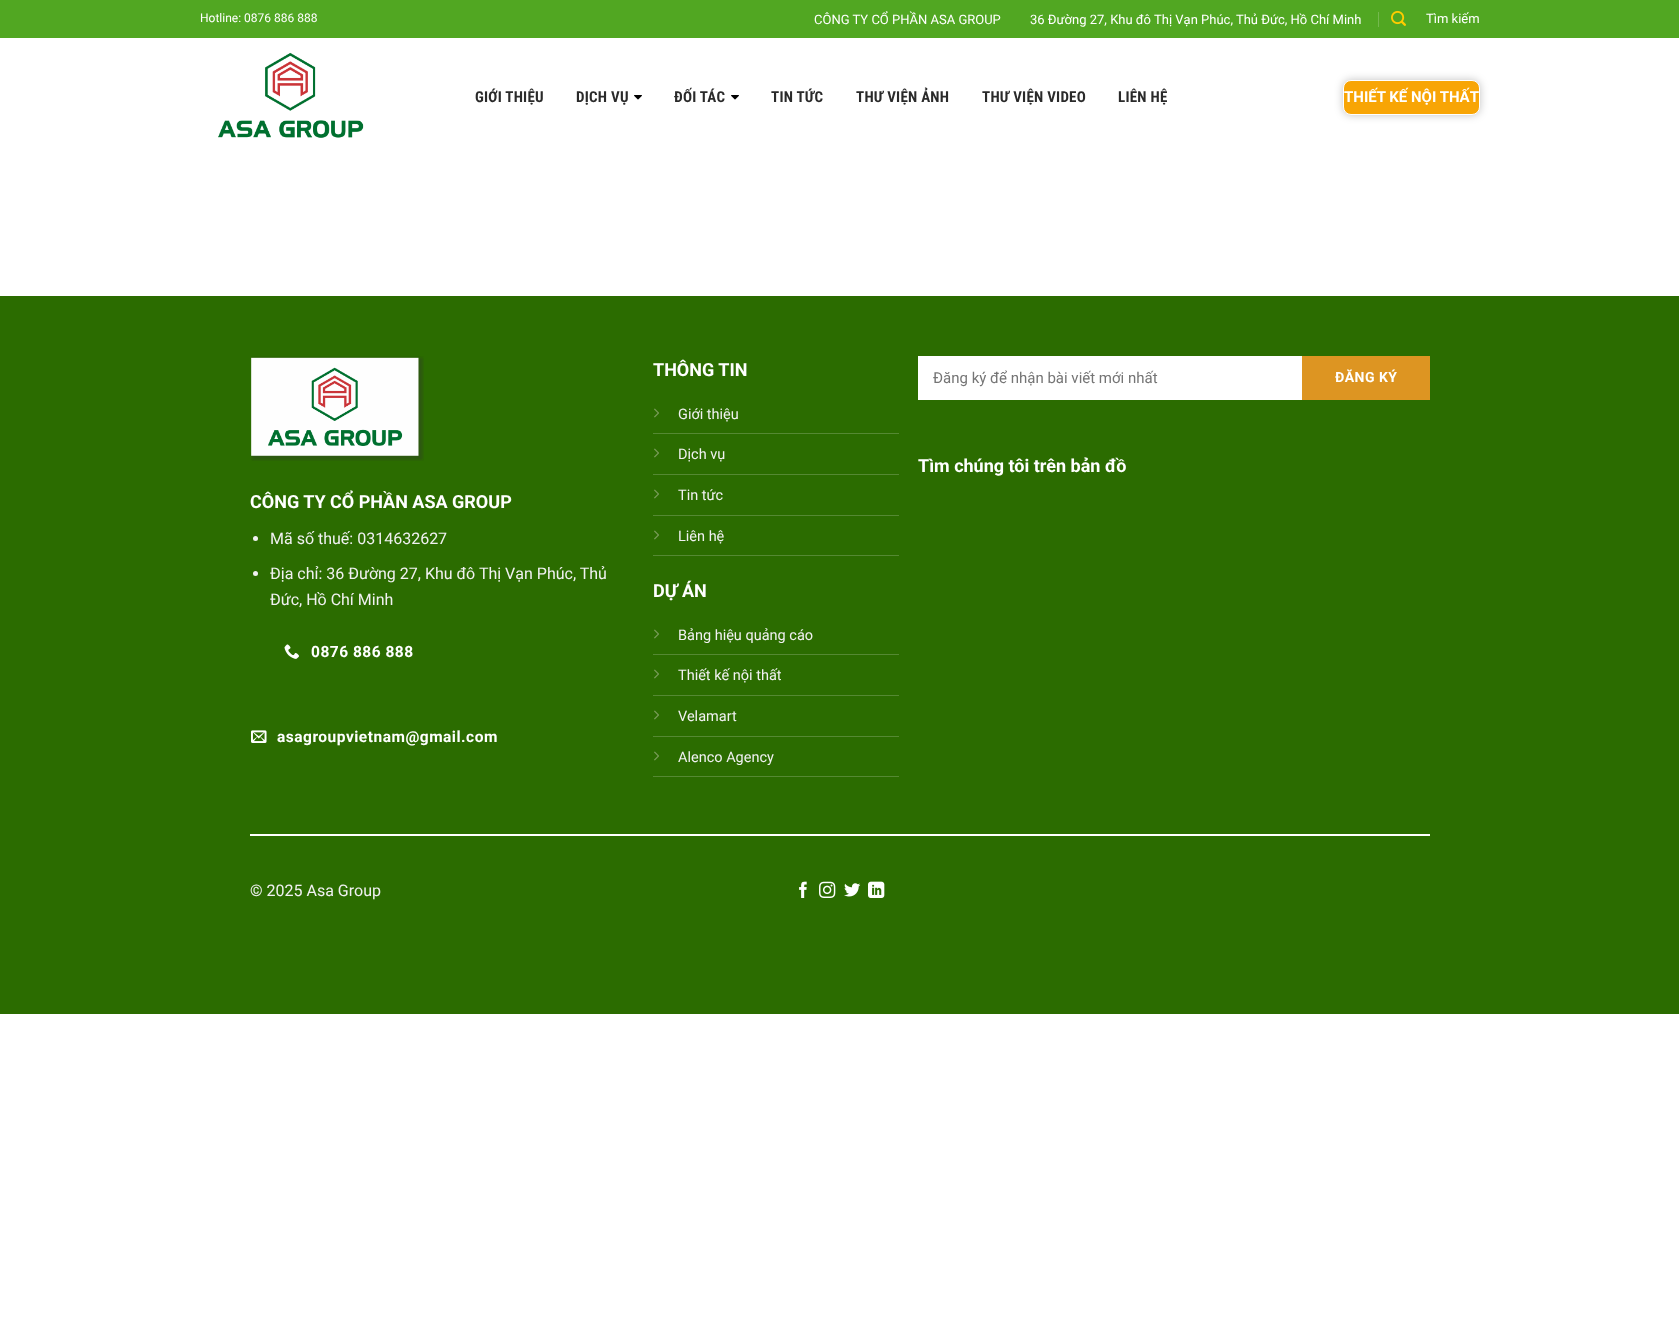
(async () => {
    const canvas = document.querySelector("canvas");
    canvas.width = 1679;
    canvas.height = 1326;
    const context = canvas.getContext("2d");
    context.miterLimit = 4;
    context.fontKerning = "normal";
    function write(s, x, y, font, color) {
        context.font = font;
        context.fillStyle = color;
        context.fillText(s, x, y);
    }
    function block(x, y, w, h, color) {
        context.fillStyle = color;
        context.fillRect(x, y, w, h);
    }
    async function photo(src, x, y, w, h) {
        const img = new Image();
        img.src = src;
        await img.decode();
        context.drawImage(img, x, y, w, h);
    }

    block(0, 0, 1679, 1326, "rgb(255, 255, 255)");
    block(0, 0, 1679, 38, "rgb(81, 167, 34)");
    write("Hotline: 0876 886 888", 200, 22, "12px Roboto", "rgb(255, 255, 255)");
    write("CÔNG TY CỔ PHẦN ASA GROUP", 814, 24, "13px Roboto", "rgb(255, 255, 255)");
    write("36 Đường 27, Khu đô Thị Vạn Phúc, Thủ Đức, Hồ Chí Minh", 1030, 24, "13px Roboto", "rgb(255, 255, 255)");
    block(1378, 12, 1, 15, "rgb(116, 185, 78)");
    await photo("media/1.png", 1391, 10, 15, 16);
    write("Tìm kiếm", 1426, 23, "13px Roboto", "rgb(255, 255, 255)");
    await photo("media/2.png", 218, 52, 146, 86);
    context.letterSpacing = "0.25px";
    write("GIỚI THIỆU", 475, 102, "bold 15px Roboto Condensed", "rgb(42, 42, 42)");
    write("DỊCH VỤ", 576, 102, "bold 15px Roboto Condensed", "rgb(42, 42, 42)");
    await photo("media/3.png", 634, 95, 8, 5);
    write("ĐỐI TÁC", 674, 102, "bold 15px Roboto Condensed", "rgb(42, 42, 42)");
    await photo("media/3.png", 731, 95, 8, 5);
    write("TIN TỨC", 771, 102, "bold 15px Roboto Condensed", "rgb(42, 42, 42)");
    write("THƯ VIỆN ẢNH", 856, 102, "bold 15px Roboto Condensed", "rgb(42, 42, 42)");
    write("THƯ VIỆN VIDEO", 982, 102, "bold 15px Roboto Condensed", "rgb(42, 42, 42)");
    write("LIÊN HỆ", 1118, 102, "bold 15px Roboto Condensed", "rgb(42, 42, 42)");
    context.fillStyle = "rgba(0, 0, 0, 0.24)";
    context.filter = "blur(4px)";
    context.beginPath();
    context.roundRect(1343, 80, 137, 35, 8);
    context.fill();
    context.filter = "none";
    context.fillStyle = "rgb(248, 165, 5)";
    context.beginPath();
    context.roundRect(1343.5, 80.5, 136, 34, 7.5);
    context.fill();
    context.strokeStyle = "rgb(255, 255, 255)";
    context.stroke();
    context.letterSpacing = "0px";
    write("THIẾT KẾ NỘI THẤT", 1344, 102, "bold 15px Roboto", "rgb(255, 255, 255)");
    block(0, 296, 1679, 718, "rgb(43, 108, 0)");
    await photo("media/4.png", 251, 356, 173, 105);
    write("CÔNG TY CỔ PHẦN ASA GROUP", 250, 508, "bold 18px Roboto", "rgb(255, 255, 255)");
    context.fillStyle = "rgb(241, 241, 241)";
    context.beginPath();
    context.arc(255.5, 538.5, 2.5, 0, Math.PI * 2);
    context.fill();
    write("Mã số thuế: 0314632627", 270, 544, "16px Roboto", "rgb(241, 241, 241)");
    context.beginPath();
    context.arc(255.5, 573.5, 2.5, 0, Math.PI * 2);
    context.fill();
    write("Địa chỉ: 36 Đường 27, Khu đô Thị Vạn Phúc, Thủ", 270, 579, "16px Roboto", "rgb(241, 241, 241)");
    write("Đức, Hồ Chí Minh", 270, 605, "16px Roboto", "rgb(241, 241, 241)");
    await photo("media/5.png", 284, 644, 15, 15);
    context.letterSpacing = "0.5px";
    write("0876 886 888", 311, 657, "bold 15.5px Roboto", "rgb(255, 255, 255)");
    await photo("media/6.png", 251, 730, 16, 13);
    write("asagroupvietnam@gmail.com", 277, 742, "bold 15.5px Roboto", "rgb(255, 255, 255)");
    context.letterSpacing = "0px";
    write("THÔNG TIN", 653, 376, "bold 18px Roboto", "rgb(255, 255, 255)");
    block(653, 433, 246, 1, "rgb(85, 137, 51)");
    await photo("media/7.png", 654, 408, 5, 10);
    write("Giới thiệu", 678, 419, "14.5px Roboto", "rgb(241, 241, 241)");
    block(653, 474, 246, 1, "rgb(85, 137, 51)");
    await photo("media/7.png", 654, 448, 5, 10);
    write("Dịch vụ", 678, 459, "14.5px Roboto", "rgb(241, 241, 241)");
    block(653, 515, 246, 1, "rgb(85, 137, 51)");
    await photo("media/7.png", 654, 489, 5, 10);
    write("Tin tức", 678, 500, "14.5px Roboto", "rgb(241, 241, 241)");
    block(653, 555, 246, 1, "rgb(85, 137, 51)");
    await photo("media/7.png", 654, 530, 5, 10);
    write("Liên hệ", 678, 541, "14.5px Roboto", "rgb(241, 241, 241)");
    write("DỰ ÁN", 653, 597, "bold 18px Roboto", "rgb(255, 255, 255)");
    block(653, 654, 246, 1, "rgb(85, 137, 51)");
    await photo("media/7.png", 654, 629, 5, 10);
    write("Bảng hiệu quảng cáo", 678, 640, "14.5px Roboto", "rgb(241, 241, 241)");
    block(653, 695, 246, 1, "rgb(85, 137, 51)");
    await photo("media/7.png", 654, 669, 5, 10);
    write("Thiết kế nội thất", 678, 680, "14.5px Roboto", "rgb(241, 241, 241)");
    block(653, 736, 246, 1, "rgb(85, 137, 51)");
    await photo("media/7.png", 654, 710, 5, 10);
    write("Velamart", 678, 721, "14.5px Roboto", "rgb(241, 241, 241)");
    block(653, 776, 246, 1, "rgb(85, 137, 51)");
    await photo("media/7.png", 654, 751, 5, 10);
    write("Alenco Agency", 678, 762, "14.5px Roboto", "rgb(241, 241, 241)");
    block(918, 356, 384, 44, "rgb(255, 255, 255)");
    write("Đăng ký để nhận bài viết mới nhất", 933, 383, "15px Roboto", "rgb(117, 117, 117)");
    block(1302, 356, 128, 44, "rgb(221, 149, 34)");
    context.letterSpacing = "0.5px";
    write("ĐĂNG KÝ", 1335, 382, "bold 14px Roboto", "rgb(255, 255, 255)");
    context.letterSpacing = "0px";
    write("Tìm chúng tôi trên bản đồ", 918, 472, "bold 18px Roboto", "rgb(255, 255, 255)");
    block(250, 834, 1180, 2, "rgb(255, 255, 255)");
    write("© 2025 Asa Group", 250, 896, "16px Roboto", "rgb(241, 241, 241)");
    await photo("media/8.png", 799, 881, 8, 17);
    await photo("media/9.png", 819, 881, 17, 17);
    await photo("media/10.png", 844, 883, 17, 14);
    await photo("media/11.png", 868, 881, 17, 17);
})();
